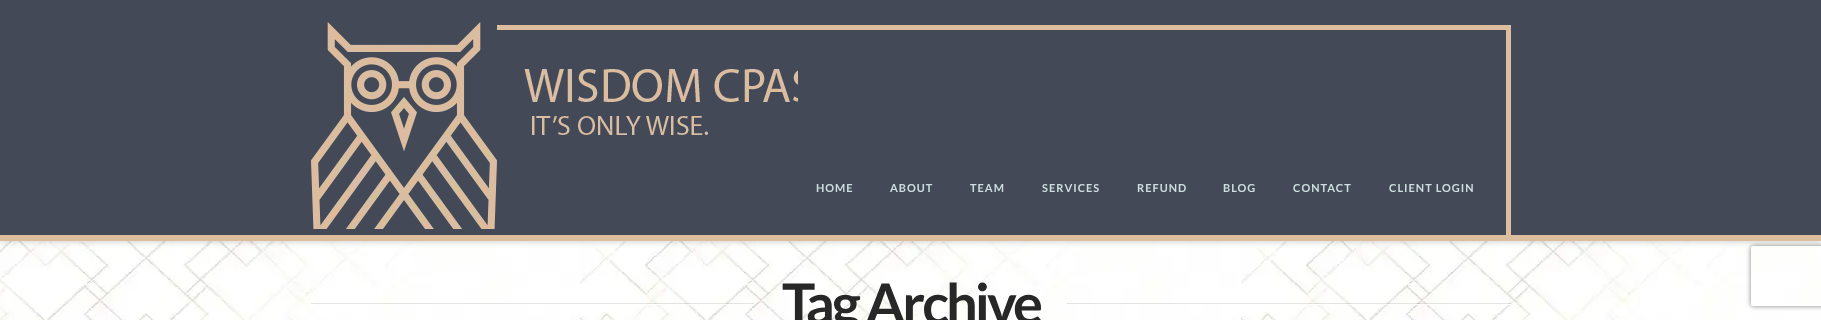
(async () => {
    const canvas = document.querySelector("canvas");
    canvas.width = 1821;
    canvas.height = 320;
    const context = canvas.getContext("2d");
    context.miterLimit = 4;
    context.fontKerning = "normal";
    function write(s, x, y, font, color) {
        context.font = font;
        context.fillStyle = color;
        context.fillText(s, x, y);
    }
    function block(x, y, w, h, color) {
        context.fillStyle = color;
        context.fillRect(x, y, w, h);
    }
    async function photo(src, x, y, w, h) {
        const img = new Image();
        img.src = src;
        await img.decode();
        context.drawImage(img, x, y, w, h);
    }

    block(0, 0, 1821, 320, "rgb(255, 255, 255)");
    await photo("media/1.png", 0, 241, 1821, 79);
    context.fillStyle = "rgba(0, 0, 0, 0.13)";
    context.filter = "blur(2.5px)";
    context.beginPath();
    context.rect(0, 2, 1821, 241);
    context.fill();
    context.filter = "none";
    block(0, 0, 1821, 235, "rgb(67, 73, 87)");
    context.save();
    context.beginPath();
    context.moveTo(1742, 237);
    context.lineTo(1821, 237);
    context.lineTo(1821, 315);
    context.lineTo(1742, 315);
    context.closePath();
    context.moveTo(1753, 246);
    context.lineTo(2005, 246);
    context.bezierCurveTo(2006, 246, 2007, 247, 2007, 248);
    context.lineTo(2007, 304);
    context.bezierCurveTo(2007, 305, 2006, 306, 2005, 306);
    context.lineTo(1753, 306);
    context.bezierCurveTo(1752, 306, 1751, 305, 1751, 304);
    context.lineTo(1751, 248);
    context.bezierCurveTo(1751, 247, 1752, 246, 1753, 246);
    context.closePath();
    context.clip("evenodd");
    context.fillStyle = "rgb(128, 128, 128)";
    context.filter = "blur(2.5px)";
    context.beginPath();
    context.roundRect(1751, 246, 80, 60, 2);
    context.fill();
    context.filter = "none";
    context.restore();
    block(0, 235, 1821, 6, "rgb(220, 189, 157)");
    await photo("media/2.png", 311, 22, 186, 207);
    block(497, 25, 1014, 5, "rgb(220, 189, 157)");
    await photo("media/3.png", 524, 69, 274, 66);
    block(1506, 25, 5, 210, "rgb(220, 189, 157)");
    context.letterSpacing = "1px";
    write("HOME", 816, 192, "bold 11px Lato", "rgb(205, 222, 222)");
    write("ABOUT", 890, 192, "bold 11px Lato", "rgb(205, 222, 222)");
    write("TEAM", 970, 192, "bold 11px Lato", "rgb(205, 222, 222)");
    write("SERVICES", 1042, 192, "bold 11px Lato", "rgb(205, 222, 222)");
    write("REFUND", 1137, 192, "bold 11px Lato", "rgb(205, 222, 222)");
    write("BLOG", 1223, 192, "bold 11px Lato", "rgb(205, 222, 222)");
    write("CONTACT", 1293, 192, "bold 11px Lato", "rgb(205, 222, 222)");
    write("CLIENT LOGIN", 1389, 192, "bold 11px Lato", "rgb(205, 222, 222)");
    block(385, 304, 347, 1, "rgba(255, 255, 255, 0.8)");
    block(311, 303, 443, 1, "rgba(0, 0, 0, 0.1)");
    context.letterSpacing = "-3px";
    write("Tag Archive", 782, 324, "bold 56px Lato", "rgb(39, 39, 39)");
    block(1307, 304, 204, 1, "rgba(255, 255, 255, 0.8)");
    block(1067, 303, 444, 1, "rgba(0, 0, 0, 0.1)");
})();
